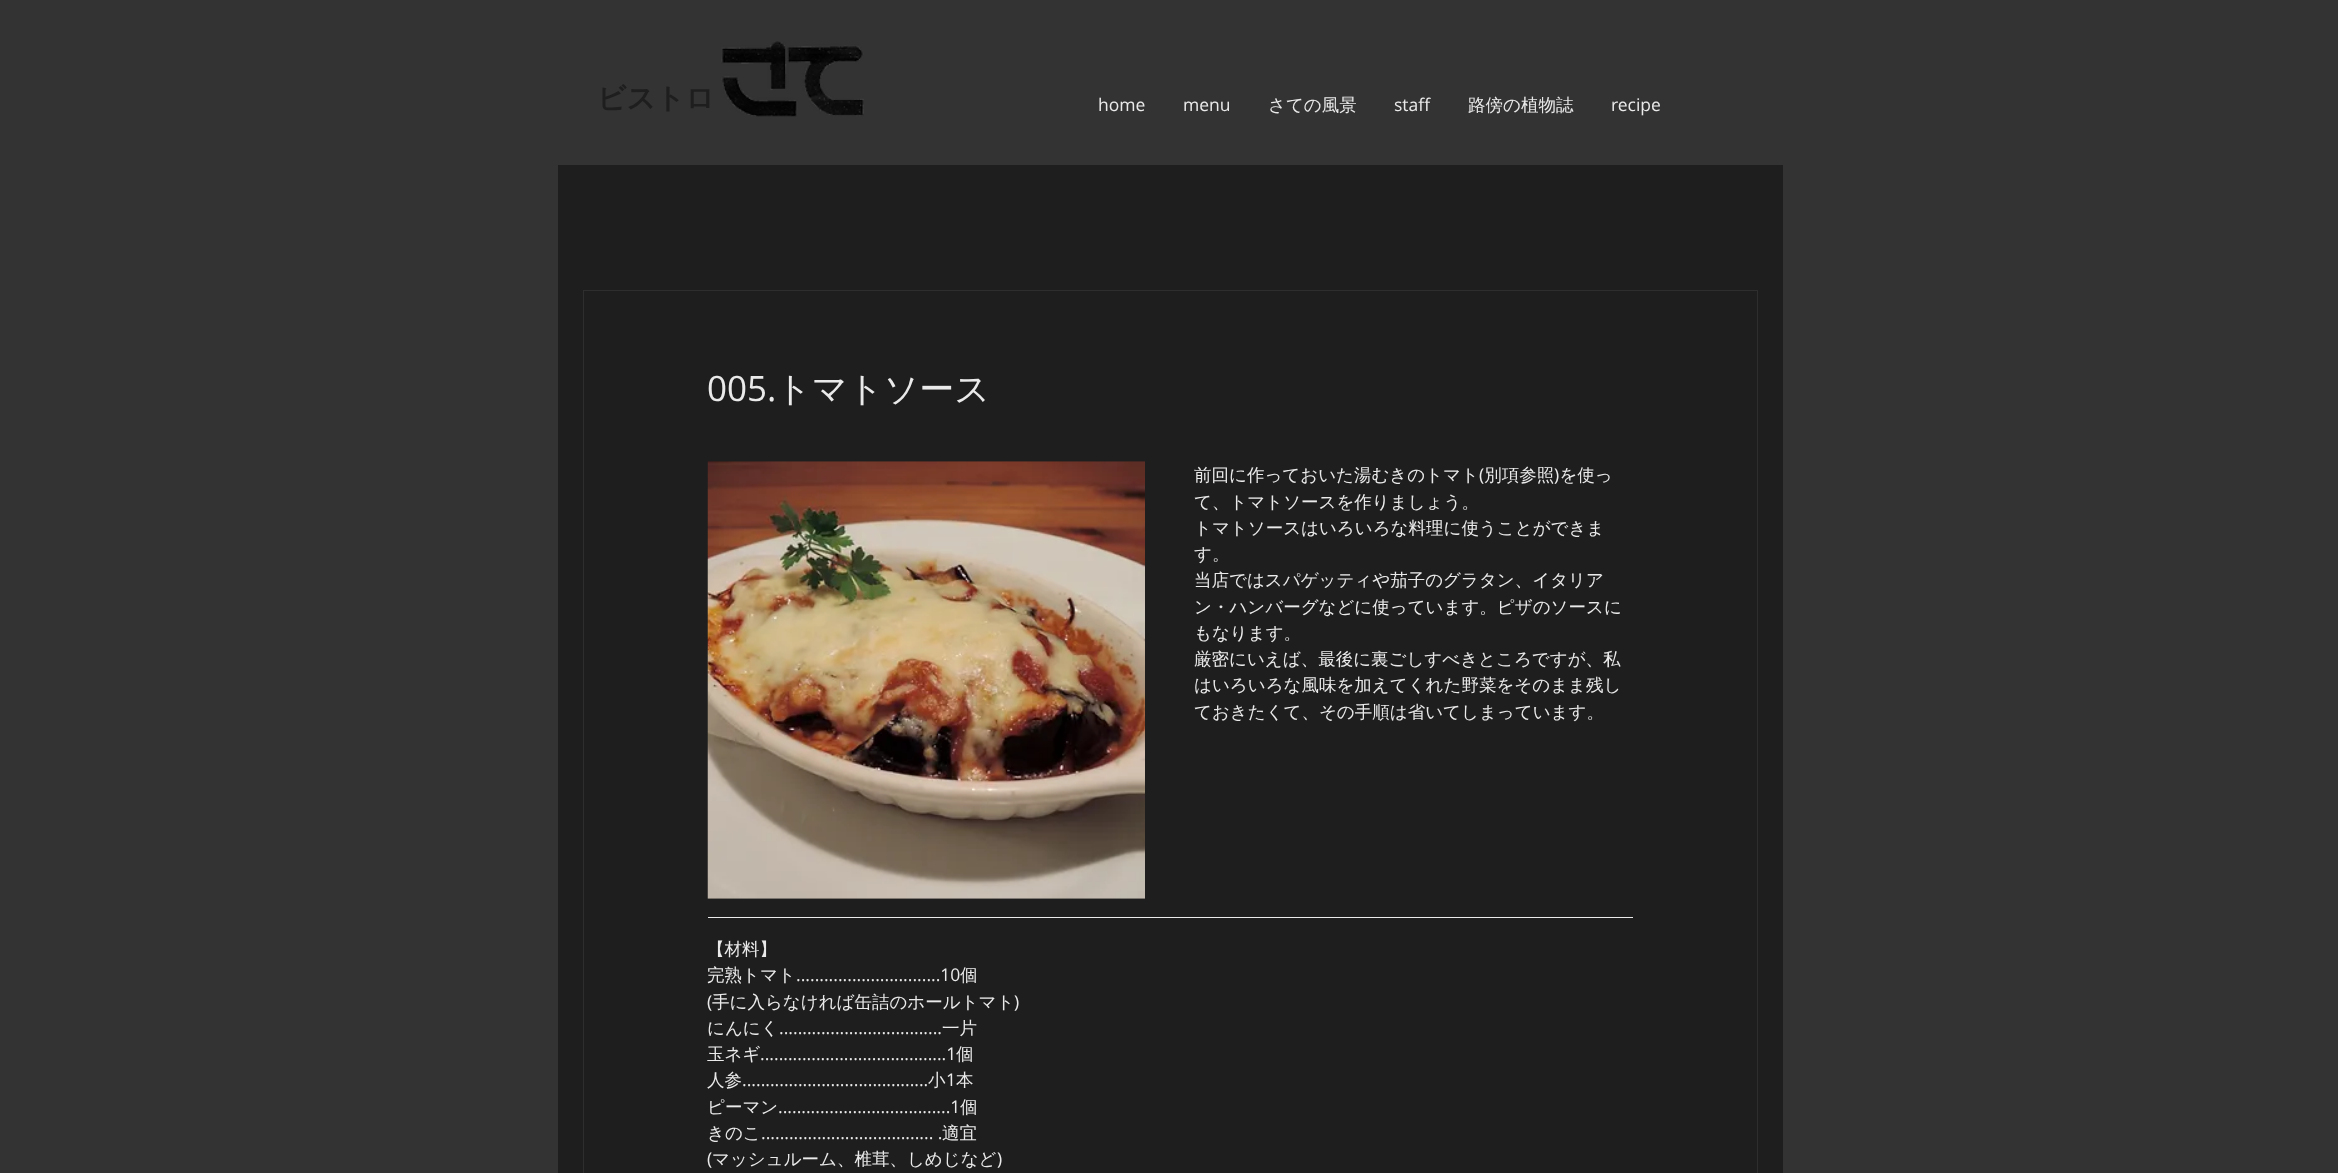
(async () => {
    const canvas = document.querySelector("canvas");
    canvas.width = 2338;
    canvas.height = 1173;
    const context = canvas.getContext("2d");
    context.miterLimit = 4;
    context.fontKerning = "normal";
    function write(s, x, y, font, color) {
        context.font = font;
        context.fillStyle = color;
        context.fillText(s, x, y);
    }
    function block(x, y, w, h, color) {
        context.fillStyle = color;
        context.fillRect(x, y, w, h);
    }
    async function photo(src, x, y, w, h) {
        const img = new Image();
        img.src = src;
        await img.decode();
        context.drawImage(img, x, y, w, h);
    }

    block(0, 0, 2338, 1173, "rgb(51, 51, 51)");
    write("ビストロ", 597, 108, "bold 28.75px WenQuanYi Zen Hei", "rgb(30, 30, 30)");
    await photo("media/1.png", 721, 41, 143, 76);
    write("home", 1098, 111, "17.5px Open Sans", "rgb(234, 234, 234)");
    write("menu", 1183, 111, "17.5px Open Sans", "rgb(234, 234, 234)");
    write("さての風景", 1268, 111, "500 17.5px WenQuanYi Zen Hei", "rgb(234, 234, 234)");
    write("staff", 1394, 111, "17.5px Open Sans", "rgb(234, 234, 234)");
    write("路傍の植物誌", 1468, 111, "500 17.5px WenQuanYi Zen Hei", "rgb(234, 234, 234)");
    write("recipe", 1611, 111, "17.5px Open Sans", "rgb(234, 234, 234)");
    block(558, 165, 1225, 1008, "rgb(30, 30, 30)");
    context.strokeStyle = "rgb(46, 46, 46)";
    context.strokeRect(583.5, 290.5, 1174, 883);
    write("005.", 707, 401, "35px Open Sans", "rgb(234, 234, 234)");
    write("トマトソース", 776, 401, "500 35px WenQuanYi Zen Hei", "rgb(234, 234, 234)");
    await photo("media/2.png", 707, 461, 438, 438);
    write("前回に作っておいた湯むきのトマト 別項参照 を使っ", 1194, 481, "500 17.5px WenQuanYi Zen Hei", "rgb(234, 234, 234)");
    write("(", 1479, 481, "17.5px Open Sans", "rgb(234, 234, 234)");
    write(")", 1554, 481, "17.5px Open Sans", "rgb(234, 234, 234)");
    write("て、トマトソースを作りましょう。", 1194, 508, "500 17.5px WenQuanYi Zen Hei", "rgb(234, 234, 234)");
    write("トマトソースはいろいろな料理に使うことができま", 1194, 534, "500 17.5px WenQuanYi Zen Hei", "rgb(234, 234, 234)");
    write("す。", 1194, 560, "500 17.5px WenQuanYi Zen Hei", "rgb(234, 234, 234)");
    write("当店ではスパゲッティや茄子のグラタン、イタリア", 1194, 586, "500 17.5px WenQuanYi Zen Hei", "rgb(234, 234, 234)");
    write("ン・ハンバーグなどに使っています。ピザのソースに", 1194, 613, "500 17.5px WenQuanYi Zen Hei", "rgb(234, 234, 234)");
    write("もなります。", 1194, 639, "500 17.5px WenQuanYi Zen Hei", "rgb(234, 234, 234)");
    write("厳密にいえば、最後に裏ごしすべきところですが、私", 1194, 665, "500 17.5px WenQuanYi Zen Hei", "rgb(234, 234, 234)");
    write("はいろいろな風味を加えてくれた野菜をそのまま残し", 1194, 691, "500 17.5px WenQuanYi Zen Hei", "rgb(234, 234, 234)");
    write("ておきたくて、その手順は省いてしまっています。", 1194, 718, "500 17.5px WenQuanYi Zen Hei", "rgb(234, 234, 234)");
    block(708, 917, 925, 1, "rgb(234, 234, 234)");
    write("【材料】", 707, 955, "500 17.5px WenQuanYi Zen Hei", "rgb(234, 234, 234)");
    write("完熟トマト", 707, 981, "500 17.5px WenQuanYi Zen Hei", "rgb(234, 234, 234)");
    write("...............................10", 796, 981, "17.5px Open Sans", "rgb(234, 234, 234)");
    write("個", 960, 981, "500 17.5px WenQuanYi Zen Hei", "rgb(234, 234, 234)");
    write("(", 707, 1008, "17.5px Open Sans", "rgb(234, 234, 234)");
    write("手に入らなければ缶詰のホールトマト", 712, 1008, "500 17.5px WenQuanYi Zen Hei", "rgb(234, 234, 234)");
    write(")", 1014, 1008, "17.5px Open Sans", "rgb(234, 234, 234)");
    write("にんにく", 707, 1034, "500 17.5px WenQuanYi Zen Hei", "rgb(234, 234, 234)");
    write("...................................", 779, 1034, "17.5px Open Sans", "rgb(234, 234, 234)");
    write("一片", 942, 1034, "500 17.5px WenQuanYi Zen Hei", "rgb(234, 234, 234)");
    write("玉ネギ", 707, 1060, "500 17.5px WenQuanYi Zen Hei", "rgb(234, 234, 234)");
    write("........................................1", 760, 1060, "17.5px Open Sans", "rgb(234, 234, 234)");
    write("個", 956, 1060, "500 17.5px WenQuanYi Zen Hei", "rgb(234, 234, 234)");
    write("人参", 707, 1086, "500 17.5px WenQuanYi Zen Hei", "rgb(234, 234, 234)");
    write("........................................", 742, 1086, "17.5px Open Sans", "rgb(234, 234, 234)");
    write("小", 928, 1086, "500 17.5px WenQuanYi Zen Hei", "rgb(234, 234, 234)");
    write("1", 946, 1086, "17.5px Open Sans", "rgb(234, 234, 234)");
    write("本", 956, 1086, "500 17.5px WenQuanYi Zen Hei", "rgb(234, 234, 234)");
    write("ピーマン", 707, 1113, "500 17.5px WenQuanYi Zen Hei", "rgb(234, 234, 234)");
    write(".....................................1", 778, 1113, "17.5px Open Sans", "rgb(234, 234, 234)");
    write("個", 960, 1113, "500 17.5px WenQuanYi Zen Hei", "rgb(234, 234, 234)");
    write("きのこ", 707, 1139, "500 17.5px WenQuanYi Zen Hei", "rgb(234, 234, 234)");
    write("..................................... .", 761, 1139, "17.5px Open Sans", "rgb(234, 234, 234)");
    write("適宜", 942, 1139, "500 17.5px WenQuanYi Zen Hei", "rgb(234, 234, 234)");
    write("(", 707, 1165, "17.5px Open Sans", "rgb(234, 234, 234)");
    write("マッシュルーム、椎茸、しめじなど", 712, 1165, "500 17.5px WenQuanYi Zen Hei", "rgb(234, 234, 234)");
    write(")", 997, 1165, "17.5px Open Sans", "rgb(234, 234, 234)");
})();
